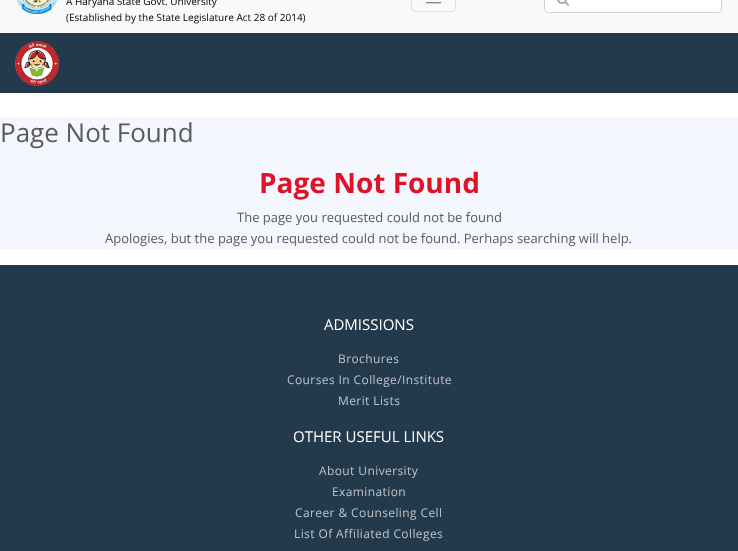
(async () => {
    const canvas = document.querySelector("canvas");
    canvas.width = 738;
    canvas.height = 551;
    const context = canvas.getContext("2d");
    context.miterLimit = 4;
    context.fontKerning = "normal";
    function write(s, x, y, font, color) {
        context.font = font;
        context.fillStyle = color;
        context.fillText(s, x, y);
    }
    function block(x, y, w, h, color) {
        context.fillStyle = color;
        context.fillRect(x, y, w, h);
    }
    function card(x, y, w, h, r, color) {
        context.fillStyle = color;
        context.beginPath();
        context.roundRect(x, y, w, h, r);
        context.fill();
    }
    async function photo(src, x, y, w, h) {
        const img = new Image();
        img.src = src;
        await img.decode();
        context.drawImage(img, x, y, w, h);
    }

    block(0, 0, 738, 551, "rgb(255, 255, 255)");
    block(0, 0, 738, 33, "rgb(248, 249, 250)");
    await photo("media/1.png", 17, 0, 40, 14);
    write("A Haryana State Govt. University", 66, 5, "10px Open Sans", "rgb(0, 0, 0)");
    write("(Established by the State Legislature Act 28 of 2014)", 66, 21, "10px Open Sans", "rgb(0, 0, 0)");
    context.beginPath();
    context.roundRect(411.5, -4.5, 44, 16, 3.5);
    context.strokeStyle = "rgb(223, 224, 225)";
    context.stroke();
    await photo("media/2.png", 426, 2, 16, 2);
    card(545, -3, 176, 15, 3, "rgb(255, 255, 255)");
    context.beginPath();
    context.roundRect(544.5, -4.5, 177, 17, 3.5);
    context.strokeStyle = "rgb(206, 212, 218)";
    context.stroke();
    await photo("media/3.png", 557, 0, 12, 6);
    block(0, 33, 738, 60, "rgb(35, 57, 76)");
    await photo("media/4.png", 15, 41, 44, 45);
    block(0, 117, 738, 132, "rgb(245, 247, 255)");
    write("Page Not Found", 0, 142, "26px Open Sans", "rgb(90, 90, 90)");
    write("Page Not Found", 259, 193, "bold 28px Open Sans", "rgb(223, 19, 39)");
    write("The page you requested could not be found", 237, 222, "13px Open Sans", "rgb(90, 90, 90)");
    write("Apologies, but the page you requested could not be found. Perhaps searching will help.", 105, 243, "13px Open Sans", "rgb(90, 90, 90)");
    block(0, 265, 738, 286, "rgb(35, 57, 76)");
    write("ADMISSIONS", 324, 330, "15px Open Sans", "rgb(255, 255, 255)");
    context.letterSpacing = "0.4px";
    write("Brochures", 338, 363, "12px Open Sans", "rgb(189, 196, 201)");
    write("Courses In College/Institute", 287, 384, "12px Open Sans", "rgb(189, 196, 201)");
    write("Merit Lists", 338, 405, "12px Open Sans", "rgb(189, 196, 201)");
    context.letterSpacing = "0px";
    write("OTHER USEFUL LINKS", 293, 442, "15px Open Sans", "rgb(255, 255, 255)");
    context.letterSpacing = "0.4px";
    write("About University", 319, 475, "12px Open Sans", "rgb(189, 196, 201)");
    write("Examination", 332, 496, "12px Open Sans", "rgb(189, 196, 201)");
    write("Career & Counseling Cell", 295, 517, "12px Open Sans", "rgb(189, 196, 201)");
    write("List Of Affiliated Colleges", 294, 538, "12px Open Sans", "rgb(189, 196, 201)");
})();
